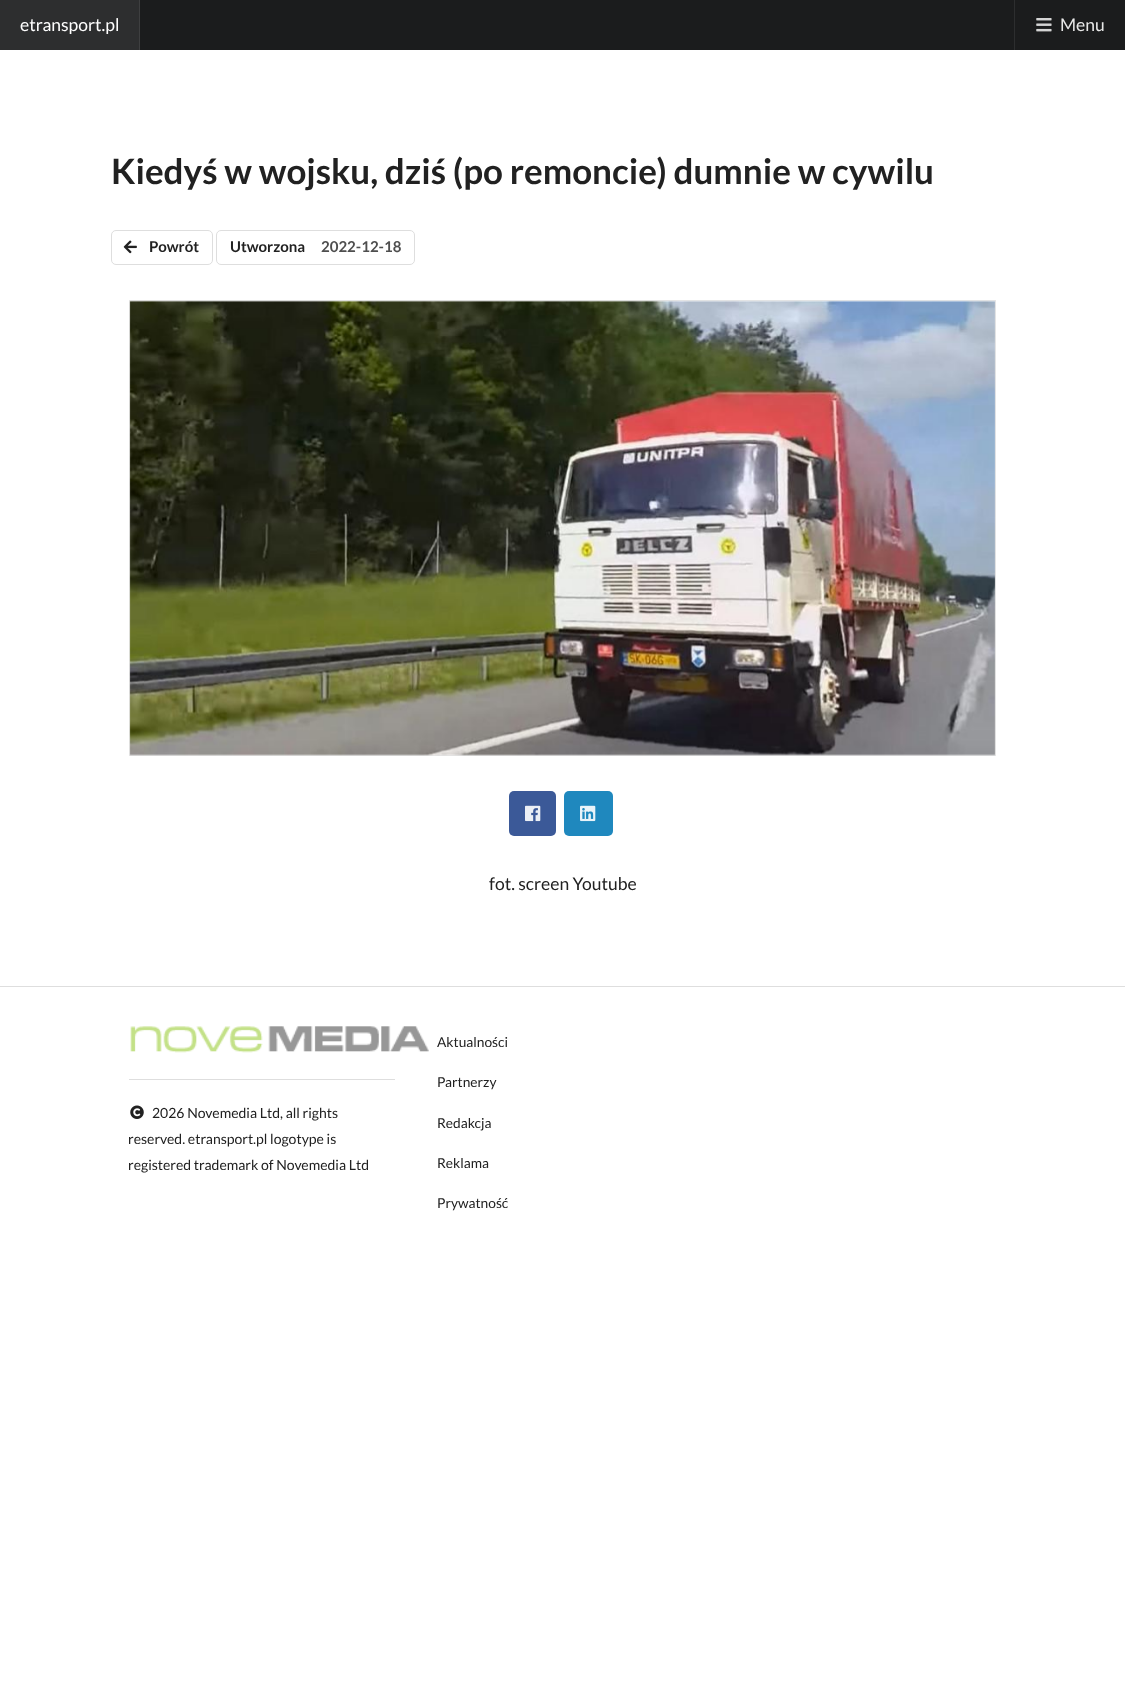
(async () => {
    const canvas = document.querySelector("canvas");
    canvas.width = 1125;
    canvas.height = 1697;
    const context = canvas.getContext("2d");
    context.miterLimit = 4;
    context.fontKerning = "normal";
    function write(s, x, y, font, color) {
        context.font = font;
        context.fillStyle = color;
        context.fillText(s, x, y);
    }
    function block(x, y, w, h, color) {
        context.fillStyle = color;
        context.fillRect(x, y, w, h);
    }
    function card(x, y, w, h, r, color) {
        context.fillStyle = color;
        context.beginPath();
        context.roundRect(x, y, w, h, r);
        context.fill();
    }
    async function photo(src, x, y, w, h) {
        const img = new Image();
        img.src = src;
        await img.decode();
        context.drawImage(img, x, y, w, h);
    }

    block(0, 0, 1125, 1697, "rgb(255, 255, 255)");
    block(140, 0, 985, 50, "rgb(27, 28, 29)");
    block(0, 0, 139, 50, "rgb(45, 46, 47)");
    write("etransport.pl", 20, 31, "17.5px Lato", "rgb(255, 255, 255)");
    block(139, 0, 1, 50, "rgb(62, 63, 64)");
    block(1014, 0, 1, 50, "rgb(45, 46, 47)");
    await photo("media/1.png", 1036, 18, 16, 14);
    write("Menu", 1060, 31, "17.5px Lato", "rgb(232, 232, 232)");
    write("Kiedyś w wojsku, dziś (po remoncie) dumnie w cywilu", 111, 184, "bold 35px Lato", "rgb(33, 33, 33)");
    context.beginPath();
    context.roundRect(111.5, 230.5, 101, 34, 4.5);
    context.strokeStyle = "rgb(222, 222, 222)";
    context.stroke();
    await photo("media/2.png", 123, 240, 14, 14);
    write("Powrót", 149, 252, "bold 15px Lato", "rgb(33, 33, 33)");
    context.beginPath();
    context.roundRect(216.5, 230.5, 198, 34, 4.5);
    context.stroke();
    write("Utworzona", 230, 252, "bold 15px Lato", "rgb(33, 33, 33)");
    write("2022-12-18", 321, 252, "bold 15px Lato", "rgb(78, 78, 78)");
    context.strokeStyle = "rgb(230, 230, 230)";
    context.strokeRect(129.5, 300.5, 866, 455);
    await photo("media/3.png", 129, 300, 867, 456);
    card(509, 791, 47, 45, 5, "rgb(59, 89, 152)");
    await photo("media/4.png", 525, 805, 16, 17);
    card(564, 791, 49, 45, 5, "rgb(31, 136, 190)");
    await photo("media/5.png", 580, 805, 16, 17);
    write("fot. screen Youtube", 489, 890, "17.5px Lato", "rgb(33, 33, 33)");
    block(0, 986, 1125, 1, "rgb(222, 222, 222)");
    await photo("media/6.png", 130, 1026, 299, 27);
    block(129, 1079, 266, 1, "rgb(222, 222, 222)");
    await photo("media/7.png", 130, 1105, 14, 14);
    write("2026 Novemedia Ltd, all rights", 152, 1118, "14px Lato", "rgb(33, 33, 33)");
    write("reserved. etransport.pl logotype is", 128, 1144, "14px Lato", "rgb(33, 33, 33)");
    write("registered trademark of Novemedia Ltd", 128, 1170, "14px Lato", "rgb(33, 33, 33)");
    write("Aktualności", 437, 1047, "13.75px Lato", "rgb(33, 33, 33)");
    write("Partnerzy", 437, 1087, "13.75px Lato", "rgb(33, 33, 33)");
    write("Redakcja", 437, 1128, "13.75px Lato", "rgb(33, 33, 33)");
    write("Reklama", 437, 1168, "13.75px Lato", "rgb(33, 33, 33)");
    write("Prywatność", 437, 1208, "13.75px Lato", "rgb(33, 33, 33)");
})();
